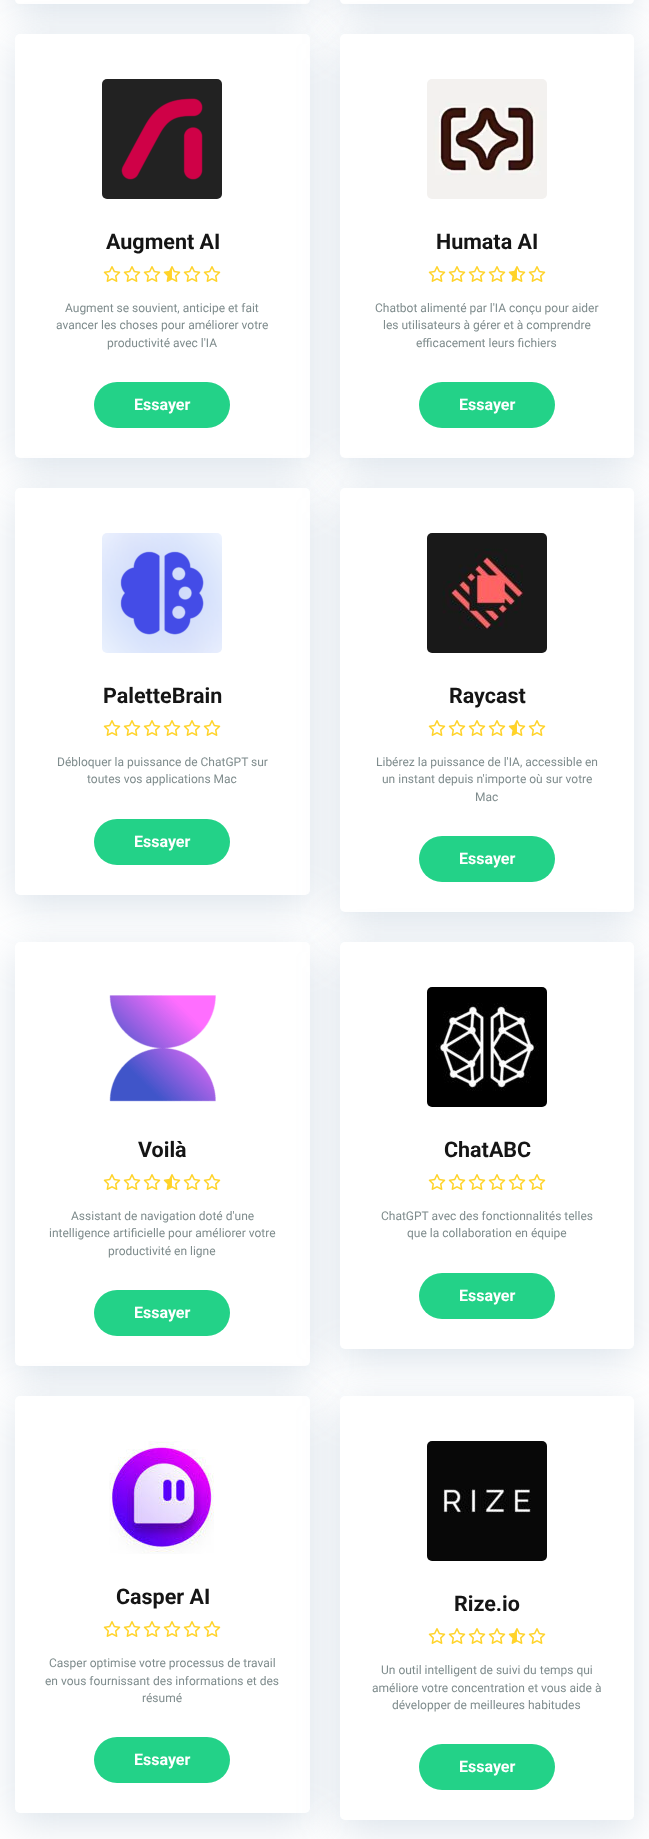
(async () => {
    const canvas = document.querySelector("canvas");
    canvas.width = 649;
    canvas.height = 1839;
    const context = canvas.getContext("2d");
    context.miterLimit = 4;
    context.fontKerning = "normal";
    function write(s, x, y, font, color) {
        context.font = font;
        context.fillStyle = color;
        context.fillText(s, x, y);
    }
    function block(x, y, w, h, color) {
        context.fillStyle = color;
        context.fillRect(x, y, w, h);
    }
    function card(x, y, w, h, r, color) {
        context.fillStyle = color;
        context.beginPath();
        context.roundRect(x, y, w, h, r);
        context.fill();
    }
    async function photo(src, x, y, w, h) {
        const img = new Image();
        img.src = src;
        await img.decode();
        context.drawImage(img, x, y, w, h);
    }

    block(0, 0, 649, 1839, "rgb(255, 255, 255)");
    context.fillStyle = "rgba(109, 141, 173, 0.25)";
    context.filter = "blur(20px)";
    context.beginPath();
    context.roundRect(15, -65, 295, 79, 5);
    context.fill();
    context.filter = "none";
    card(15, -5, 295, 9, 5, "rgb(255, 255, 255)");
    context.fillStyle = "rgba(109, 141, 173, 0.25)";
    context.filter = "blur(20px)";
    context.beginPath();
    context.roundRect(340, -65, 294, 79, 5);
    context.fill();
    context.filter = "none";
    card(340, -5, 294, 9, 5, "rgb(255, 255, 255)");
    context.fillStyle = "rgba(109, 141, 173, 0.25)";
    context.filter = "blur(20px)";
    context.beginPath();
    context.roundRect(15, 44, 295, 424, 5);
    context.fill();
    context.filter = "none";
    card(15, 34, 295, 424, 5, "rgb(255, 255, 255)");
    await photo("media/1.png", 102, 79, 120, 120);
    write("Augment AI", 106, 249, "bold 21.5px Roboto", "rgb(21, 21, 21)");
    await photo("media/2.png", 103, 266, 18, 16);
    await photo("media/2.png", 123, 266, 18, 16);
    await photo("media/2.png", 143, 266, 18, 16);
    await photo("media/3.png", 163, 266, 18, 16);
    await photo("media/2.png", 183, 266, 18, 16);
    await photo("media/2.png", 203, 266, 18, 16);
    write("Augment se souvient, anticipe et fait", 65, 312, "12px Roboto", "rgb(127, 140, 141)");
    write("avancer les choses pour améliorer votre", 56, 329, "12px Roboto", "rgb(127, 140, 141)");
    write("productivité avec l'IA", 107, 347, "12px Roboto", "rgb(127, 140, 141)");
    card(94, 382, 136, 46, 23, "rgb(35, 210, 136)");
    write("Essayer", 134, 410, "bold 16px Roboto", "rgb(255, 255, 255)");
    context.fillStyle = "rgba(109, 141, 173, 0.25)";
    context.filter = "blur(20px)";
    context.beginPath();
    context.roundRect(340, 44, 294, 424, 5);
    context.fill();
    context.filter = "none";
    card(340, 34, 294, 424, 5, "rgb(255, 255, 255)");
    await photo("media/4.png", 427, 79, 120, 120);
    write("Humata AI", 436, 249, "bold 21.5px Roboto", "rgb(21, 21, 21)");
    await photo("media/2.png", 428, 266, 18, 16);
    await photo("media/2.png", 448, 266, 18, 16);
    await photo("media/2.png", 468, 266, 18, 16);
    await photo("media/2.png", 488, 266, 18, 16);
    await photo("media/3.png", 508, 266, 18, 16);
    await photo("media/2.png", 528, 266, 18, 16);
    write("Chatbot alimenté par l'IA conçu pour aider", 375, 312, "12px Roboto", "rgb(127, 140, 141)");
    write("les utilisateurs à gérer et à comprendre", 383, 329, "12px Roboto", "rgb(127, 140, 141)");
    write("efficacement leurs fichiers", 416, 347, "12px Roboto", "rgb(127, 140, 141)");
    card(419, 382, 136, 46, 23, "rgb(35, 210, 136)");
    write("Essayer", 459, 410, "bold 16px Roboto", "rgb(255, 255, 255)");
    context.fillStyle = "rgba(109, 141, 173, 0.25)";
    context.filter = "blur(20px)";
    context.beginPath();
    context.roundRect(15, 498, 295, 407, 5);
    context.fill();
    context.filter = "none";
    card(15, 488, 295, 407, 5, "rgb(255, 255, 255)");
    await photo("media/5.png", 102, 533, 120, 120);
    write("PaletteBrain", 103, 703, "bold 21.5px Roboto", "rgb(21, 21, 21)");
    await photo("media/2.png", 103, 720, 18, 16);
    await photo("media/2.png", 123, 720, 18, 16);
    await photo("media/2.png", 143, 720, 18, 16);
    await photo("media/2.png", 163, 720, 18, 16);
    await photo("media/2.png", 183, 720, 18, 16);
    await photo("media/2.png", 203, 720, 18, 16);
    write("Débloquer la puissance de ChatGPT sur", 57, 766, "12px Roboto", "rgb(127, 140, 141)");
    write("toutes vos applications Mac", 87, 783, "12px Roboto", "rgb(127, 140, 141)");
    card(94, 819, 136, 46, 23, "rgb(35, 210, 136)");
    write("Essayer", 134, 847, "bold 16px Roboto", "rgb(255, 255, 255)");
    context.fillStyle = "rgba(109, 141, 173, 0.25)";
    context.filter = "blur(20px)";
    context.beginPath();
    context.roundRect(340, 498, 294, 424, 5);
    context.fill();
    context.filter = "none";
    card(340, 488, 294, 424, 5, "rgb(255, 255, 255)");
    await photo("media/6.png", 427, 533, 120, 120);
    write("Raycast", 449, 703, "bold 21.5px Roboto", "rgb(21, 21, 21)");
    await photo("media/2.png", 428, 720, 18, 16);
    await photo("media/2.png", 448, 720, 18, 16);
    await photo("media/2.png", 468, 720, 18, 16);
    await photo("media/2.png", 488, 720, 18, 16);
    await photo("media/3.png", 508, 720, 18, 16);
    await photo("media/2.png", 528, 720, 18, 16);
    write("Libérez la puissance de l'IA, accessible en", 376, 766, "12px Roboto", "rgb(127, 140, 141)");
    write("un instant depuis n'importe où sur votre", 382, 783, "12px Roboto", "rgb(127, 140, 141)");
    write("Mac", 475, 801, "12px Roboto", "rgb(127, 140, 141)");
    card(419, 836, 136, 46, 23, "rgb(35, 210, 136)");
    write("Essayer", 459, 864, "bold 16px Roboto", "rgb(255, 255, 255)");
    context.fillStyle = "rgba(109, 141, 173, 0.25)";
    context.filter = "blur(20px)";
    context.beginPath();
    context.roundRect(15, 952, 295, 424, 5);
    context.fill();
    context.filter = "none";
    card(15, 942, 295, 424, 5, "rgb(255, 255, 255)");
    await photo("media/7.png", 109, 995, 107, 107);
    write("Voilà", 138, 1157, "bold 21.5px Roboto", "rgb(21, 21, 21)");
    await photo("media/2.png", 103, 1174, 18, 16);
    await photo("media/2.png", 123, 1174, 18, 16);
    await photo("media/2.png", 143, 1174, 18, 16);
    await photo("media/3.png", 163, 1174, 18, 16);
    await photo("media/2.png", 183, 1174, 18, 16);
    await photo("media/2.png", 203, 1174, 18, 16);
    write("Assistant de navigation doté d'une", 71, 1220, "12px Roboto", "rgb(127, 140, 141)");
    write("intelligence artificielle pour améliorer votre", 49, 1237, "12px Roboto", "rgb(127, 140, 141)");
    write("productivité en ligne", 108, 1255, "12px Roboto", "rgb(127, 140, 141)");
    card(94, 1290, 136, 46, 23, "rgb(35, 210, 136)");
    write("Essayer", 134, 1318, "bold 16px Roboto", "rgb(255, 255, 255)");
    context.fillStyle = "rgba(109, 141, 173, 0.25)";
    context.filter = "blur(20px)";
    context.beginPath();
    context.roundRect(340, 952, 294, 407, 5);
    context.fill();
    context.filter = "none";
    card(340, 942, 294, 407, 5, "rgb(255, 255, 255)");
    await photo("media/8.png", 427, 987, 120, 120);
    write("ChatABC", 444, 1157, "bold 21.5px Roboto", "rgb(21, 21, 21)");
    await photo("media/2.png", 428, 1174, 18, 16);
    await photo("media/2.png", 448, 1174, 18, 16);
    await photo("media/2.png", 468, 1174, 18, 16);
    await photo("media/2.png", 488, 1174, 18, 16);
    await photo("media/2.png", 508, 1174, 18, 16);
    await photo("media/2.png", 528, 1174, 18, 16);
    write("ChatGPT avec des fonctionnalités telles", 381, 1220, "12px Roboto", "rgb(127, 140, 141)");
    write("que la collaboration en équipe", 407, 1237, "12px Roboto", "rgb(127, 140, 141)");
    card(419, 1273, 136, 46, 23, "rgb(35, 210, 136)");
    write("Essayer", 459, 1301, "bold 16px Roboto", "rgb(255, 255, 255)");
    context.fillStyle = "rgba(109, 141, 173, 0.25)";
    context.filter = "blur(20px)";
    context.beginPath();
    context.roundRect(15, 1406, 295, 417, 5);
    context.fill();
    context.filter = "none";
    card(15, 1396, 295, 417, 5, "rgb(255, 255, 255)");
    await photo("media/9.png", 109, 1441, 105, 113);
    write("Casper AI", 116, 1604, "bold 21.5px Roboto", "rgb(21, 21, 21)");
    await photo("media/2.png", 103, 1621, 18, 16);
    await photo("media/2.png", 123, 1621, 18, 16);
    await photo("media/2.png", 143, 1621, 18, 16);
    await photo("media/2.png", 163, 1621, 18, 16);
    await photo("media/2.png", 183, 1621, 18, 16);
    await photo("media/2.png", 203, 1621, 18, 16);
    write("Casper optimise votre processus de travail", 49, 1667, "12px Roboto", "rgb(127, 140, 141)");
    write("en vous fournissant des informations et des", 45, 1685, "12px Roboto", "rgb(127, 140, 141)");
    write("résumé", 142, 1702, "12px Roboto", "rgb(127, 140, 141)");
    card(94, 1737, 136, 46, 23, "rgb(35, 210, 136)");
    write("Essayer", 134, 1765, "bold 16px Roboto", "rgb(255, 255, 255)");
    context.fillStyle = "rgba(109, 141, 173, 0.25)";
    context.filter = "blur(20px)";
    context.beginPath();
    context.roundRect(340, 1406, 294, 424, 5);
    context.fill();
    context.filter = "none";
    card(340, 1396, 294, 424, 5, "rgb(255, 255, 255)");
    await photo("media/10.png", 427, 1441, 120, 120);
    write("Rize.io", 454, 1611, "bold 21.5px Roboto", "rgb(21, 21, 21)");
    await photo("media/2.png", 428, 1628, 18, 16);
    await photo("media/2.png", 448, 1628, 18, 16);
    await photo("media/2.png", 468, 1628, 18, 16);
    await photo("media/2.png", 488, 1628, 18, 16);
    await photo("media/3.png", 508, 1628, 18, 16);
    await photo("media/2.png", 528, 1628, 18, 16);
    write("Un outil intelligent de suivi du temps qui", 381, 1674, "12px Roboto", "rgb(127, 140, 141)");
    write("améliore votre concentration et vous aide à", 372, 1692, "12px Roboto", "rgb(127, 140, 141)");
    write("développer de meilleures habitudes", 392, 1709, "12px Roboto", "rgb(127, 140, 141)");
    card(419, 1744, 136, 46, 23, "rgb(35, 210, 136)");
    write("Essayer", 459, 1772, "bold 16px Roboto", "rgb(255, 255, 255)");
})();
